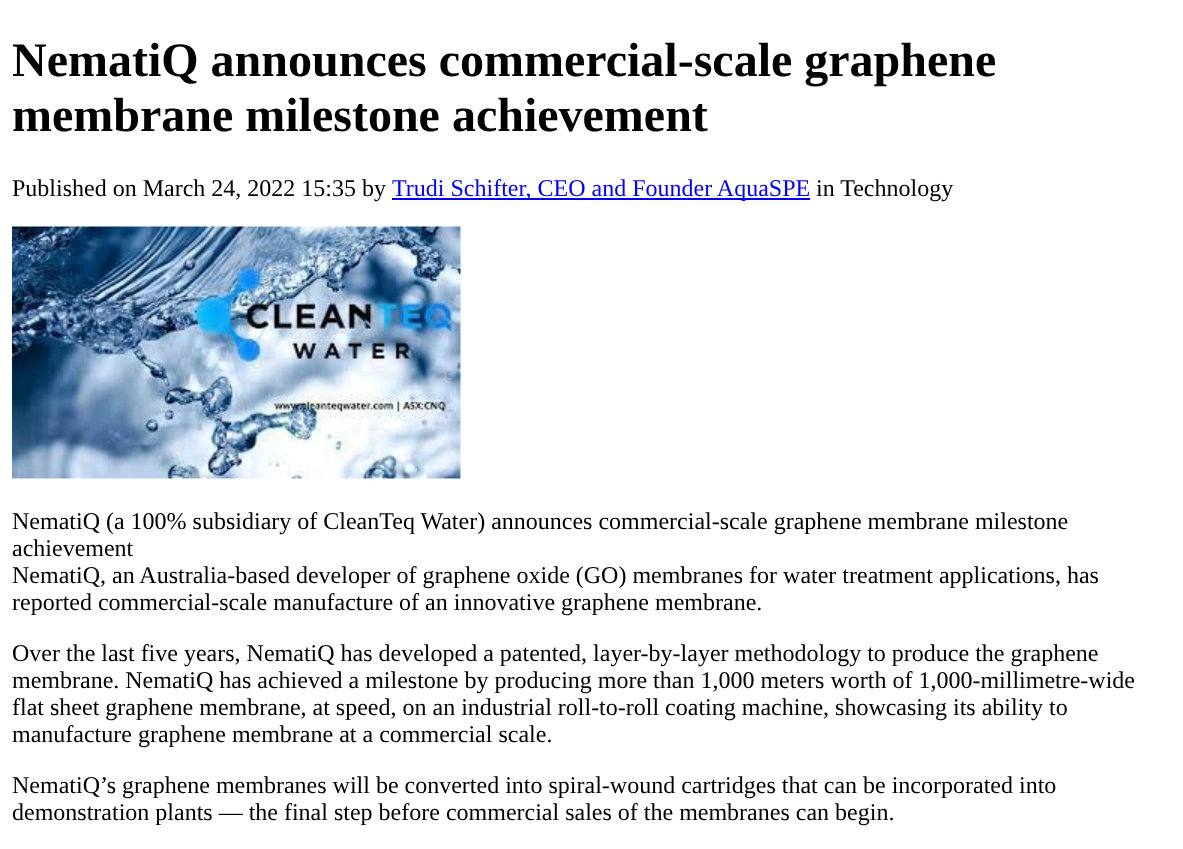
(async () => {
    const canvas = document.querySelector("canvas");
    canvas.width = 1183;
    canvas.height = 849;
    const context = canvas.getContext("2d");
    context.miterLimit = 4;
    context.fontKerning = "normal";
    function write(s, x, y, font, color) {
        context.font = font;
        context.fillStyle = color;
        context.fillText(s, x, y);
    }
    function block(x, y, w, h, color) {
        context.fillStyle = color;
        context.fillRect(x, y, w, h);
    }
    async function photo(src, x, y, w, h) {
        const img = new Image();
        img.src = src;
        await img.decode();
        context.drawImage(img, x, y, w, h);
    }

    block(0, 0, 1183, 849, "rgb(255, 255, 255)");
    write("NematiQ announces commercial-scale graphene", 12, 76, "bold 48px Liberation Serif", "rgb(0, 0, 0)");
    write("membrane milestone achievement", 12, 131, "bold 48px Liberation Serif", "rgb(0, 0, 0)");
    write("Published on March 24, 2022 15:35 by", 12, 196, "24px Liberation Serif", "rgb(0, 0, 0)");
    block(392, 198, 418, 2, "rgb(0, 0, 238)");
    write("Trudi Schifter, CEO and Founder AquaSPE", 392, 196, "24px Liberation Serif", "rgb(0, 0, 238)");
    write("in Technology", 816, 196, "24px Liberation Serif", "rgb(0, 0, 0)");
    await photo("media/1.png", 12, 226, 449, 253);
    write("NematiQ (a 100% subsidiary of CleanTeq Water) announces commercial-scale graphene membrane milestone", 12, 529, "24px Liberation Serif", "rgb(0, 0, 0)");
    write("achievement", 12, 556, "24px Liberation Serif", "rgb(0, 0, 0)");
    write("NematiQ, an Australia-based developer of graphene oxide (GO) membranes for water treatment applications, has", 12, 583, "24px Liberation Serif", "rgb(0, 0, 0)");
    write("reported commercial-scale manufacture of an innovative graphene membrane.", 12, 610, "24px Liberation Serif", "rgb(0, 0, 0)");
    write("Over the last five years, NematiQ has developed a patented, layer-by-layer methodology to produce the graphene", 12, 661, "24px Liberation Serif", "rgb(0, 0, 0)");
    write("membrane. NematiQ has achieved a milestone by producing more than 1,000 meters worth of 1,000-millimetre-wide", 12, 688, "24px Liberation Serif", "rgb(0, 0, 0)");
    write("flat sheet graphene membrane, at speed, on an industrial roll-to-roll coating machine, showcasing its ability to", 12, 715, "24px Liberation Serif", "rgb(0, 0, 0)");
    write("manufacture graphene membrane at a commercial scale.", 12, 742, "24px Liberation Serif", "rgb(0, 0, 0)");
    write("NematiQ’s graphene membranes will be converted into spiral-wound cartridges that can be incorporated into", 12, 793, "24px Liberation Serif", "rgb(0, 0, 0)");
    write("demonstration plants — the final step before commercial sales of the membranes can begin.", 12, 820, "24px Liberation Serif", "rgb(0, 0, 0)");
})();
